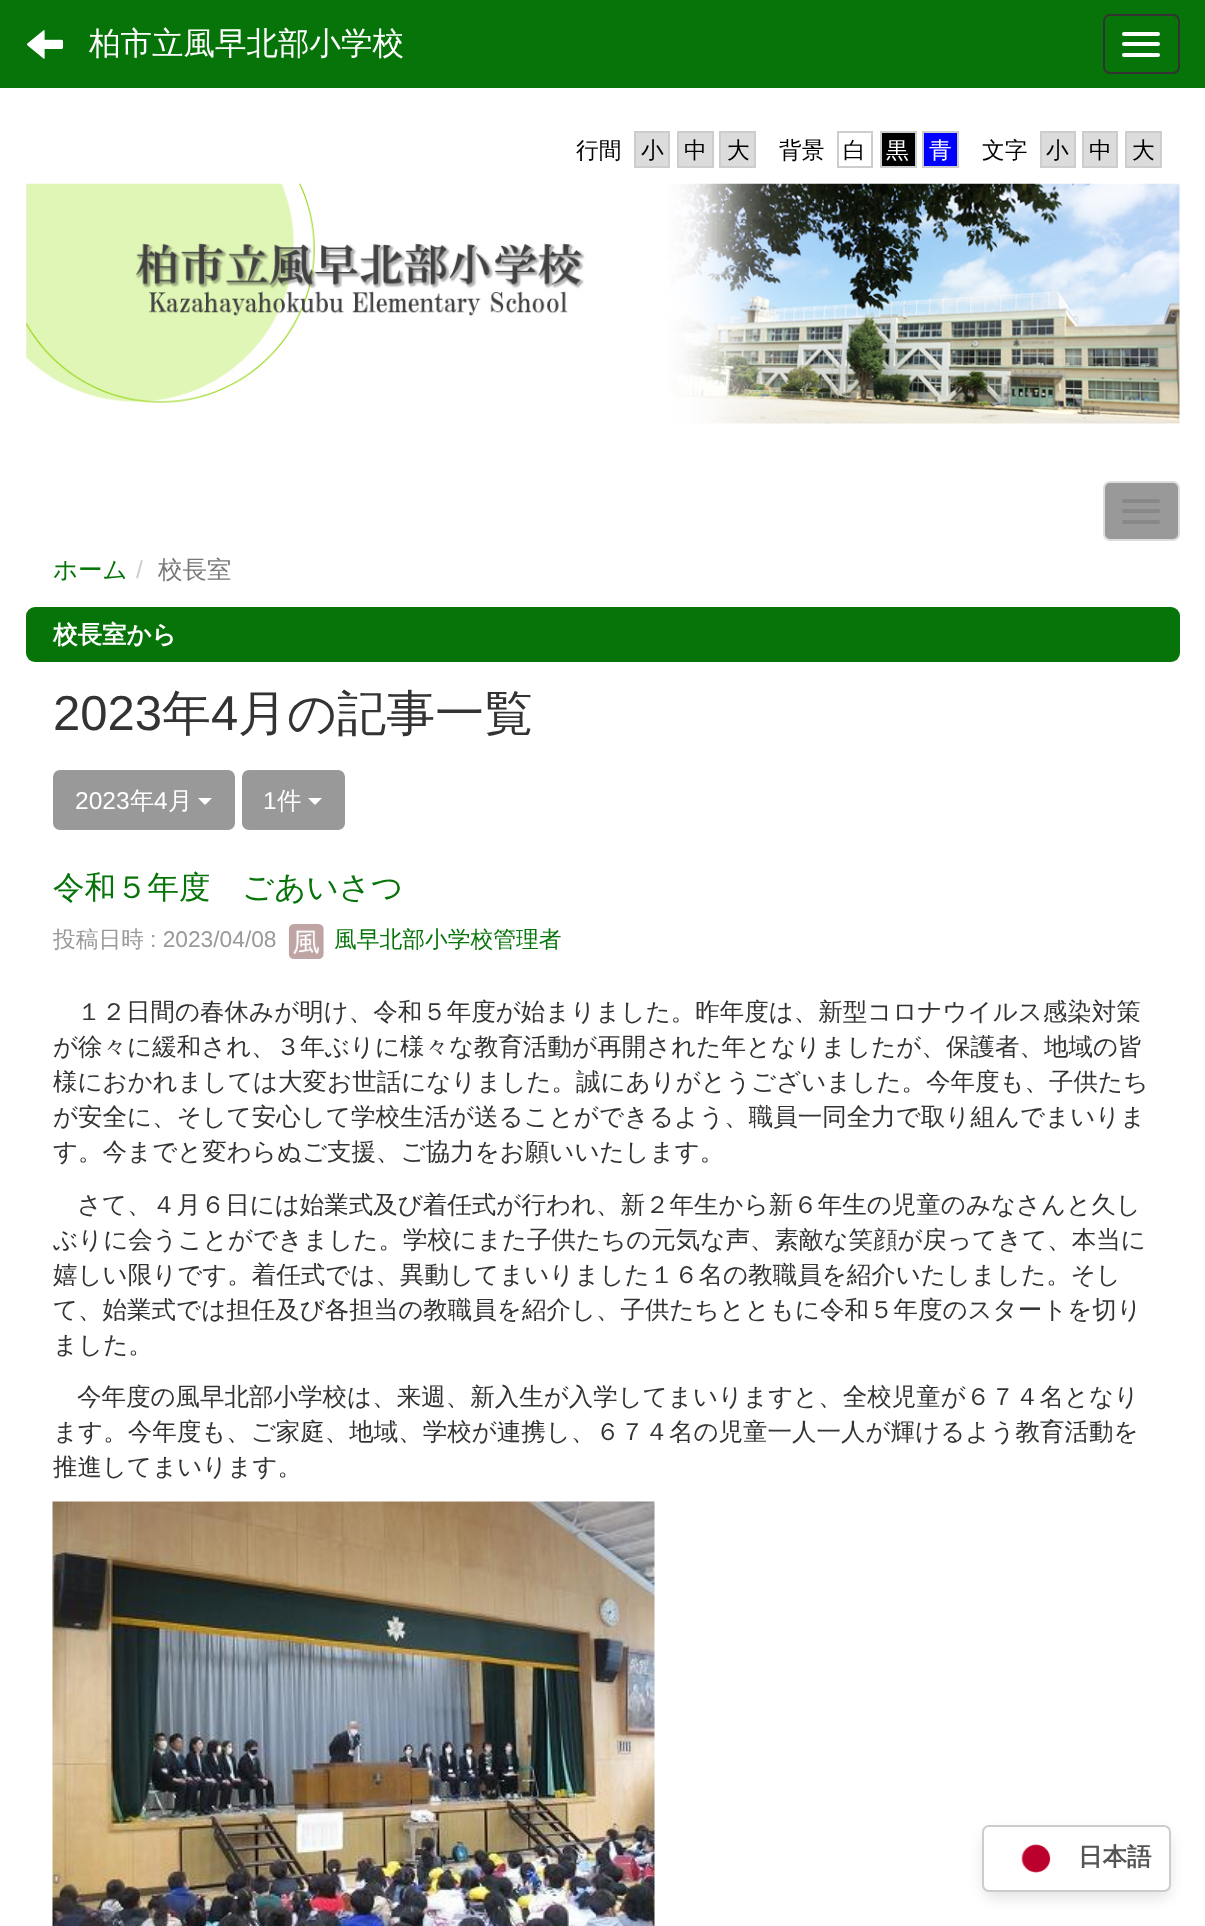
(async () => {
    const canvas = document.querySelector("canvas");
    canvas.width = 1205;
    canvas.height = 1926;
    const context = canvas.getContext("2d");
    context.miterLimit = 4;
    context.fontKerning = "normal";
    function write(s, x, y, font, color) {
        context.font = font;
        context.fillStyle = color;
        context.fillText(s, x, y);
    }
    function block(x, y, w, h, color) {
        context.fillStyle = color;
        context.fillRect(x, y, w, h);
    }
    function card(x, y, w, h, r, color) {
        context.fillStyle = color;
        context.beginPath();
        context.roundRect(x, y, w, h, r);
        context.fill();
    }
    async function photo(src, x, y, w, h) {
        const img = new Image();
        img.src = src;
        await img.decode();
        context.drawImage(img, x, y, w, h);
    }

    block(0, 0, 1205, 1926, "rgb(255, 255, 255)");
    block(0, 0, 1205, 88, "rgb(6, 116, 9)");
    await photo("media/1.png", 27, 30, 36, 29);
    write("柏市立風早北部小学校", 89, 54, "500 31.5px WenQuanYi Zen Hei", "rgb(255, 255, 255)");
    context.beginPath();
    context.roundRect(1104, 15, 75, 58, 6);
    context.strokeStyle = "rgb(51, 51, 51)";
    context.lineWidth = 2;
    context.stroke();
    card(1122, 32, 38, 4, 2, "rgb(255, 255, 255)");
    card(1122, 42, 38, 4, 2, "rgb(255, 255, 255)");
    card(1122, 53, 38, 4, 2, "rgb(255, 255, 255)");
    write("行間", 576, 158, "500 22.75px WenQuanYi Zen Hei", "rgb(0, 0, 0)");
    context.fillStyle = "rgb(220, 220, 220)";
    context.beginPath();
    context.rect(635, 132, 34, 35);
    context.fill();
    context.strokeStyle = "rgb(205, 205, 205)";
    context.stroke();
    write("小", 641, 158, "500 22.75px WenQuanYi Zen Hei", "rgb(0, 0, 0)");
    context.fillStyle = "rgb(220, 220, 220)";
    context.beginPath();
    context.rect(678, 132, 35, 35);
    context.fill();
    context.stroke();
    write("中", 684, 158, "500 22.75px WenQuanYi Zen Hei", "rgb(0, 0, 0)");
    context.fillStyle = "rgb(220, 220, 220)";
    context.beginPath();
    context.rect(720, 132, 35, 35);
    context.fill();
    context.stroke();
    write("大", 727, 158, "500 22.75px WenQuanYi Zen Hei", "rgb(0, 0, 0)");
    write("背景", 779, 158, "500 22.75px WenQuanYi Zen Hei", "rgb(0, 0, 0)");
    context.strokeRect(838, 132, 34, 35);
    write("白", 843, 158, "500 22.75px WenQuanYi Zen Hei", "rgb(0, 0, 0)");
    context.beginPath();
    context.rect(881, 132, 35, 35);
    context.fill();
    context.stroke();
    write("黒", 886, 158, "500 22.75px WenQuanYi Zen Hei", "rgb(255, 255, 255)");
    context.fillStyle = "rgb(0, 0, 255)";
    context.beginPath();
    context.rect(923, 132, 35, 35);
    context.fill();
    context.stroke();
    write("青", 929, 158, "500 22.75px WenQuanYi Zen Hei", "rgb(255, 255, 255)");
    write("文字", 982, 158, "500 22.75px WenQuanYi Zen Hei", "rgb(0, 0, 0)");
    context.fillStyle = "rgb(220, 220, 220)";
    context.beginPath();
    context.rect(1041, 132, 34, 35);
    context.fill();
    context.stroke();
    write("小", 1046, 158, "500 22.75px WenQuanYi Zen Hei", "rgb(0, 0, 0)");
    context.fillStyle = "rgb(220, 220, 220)";
    context.beginPath();
    context.rect(1083, 132, 34, 35);
    context.fill();
    context.stroke();
    write("中", 1089, 158, "500 22.75px WenQuanYi Zen Hei", "rgb(0, 0, 0)");
    context.fillStyle = "rgb(220, 220, 220)";
    context.beginPath();
    context.rect(1126, 132, 35, 35);
    context.fill();
    context.stroke();
    write("大", 1132, 158, "500 22.75px WenQuanYi Zen Hei", "rgb(0, 0, 0)");
    await photo("media/2.png", 26, 183, 1154, 241);
    context.fillStyle = "rgb(153, 153, 153)";
    context.beginPath();
    context.roundRect(1104, 482, 75, 58, 6);
    context.fill();
    context.strokeStyle = "rgb(221, 221, 221)";
    context.stroke();
    card(1122, 499, 38, 4, 2, "rgb(136, 136, 136)");
    card(1122, 509, 38, 4, 2, "rgb(136, 136, 136)");
    card(1122, 520, 38, 4, 2, "rgb(136, 136, 136)");
    write("ホーム", 53, 578, "500 24.5px WenQuanYi Zen Hei", "rgb(6, 116, 9)");
    write("/", 136, 578, "24.5px Liberation Sans", "rgb(204, 204, 204)");
    write("校長室", 158, 578, "500 24.5px WenQuanYi Zen Hei", "rgb(119, 119, 119)");
    card(26, 607, 1154, 55, 9, "rgb(6, 116, 9)");
    write("校長室から", 53, 643, "bold 24.5px WenQuanYi Zen Hei", "rgb(255, 255, 255)");
    write("2023", 53, 730, "49px Liberation Sans", "rgb(51, 51, 51)");
    write("年", 162, 730, "500 49px WenQuanYi Zen Hei", "rgb(51, 51, 51)");
    write("4", 211, 730, "49px Liberation Sans", "rgb(51, 51, 51)");
    write("月の記事一覧", 238, 730, "500 49px WenQuanYi Zen Hei", "rgb(51, 51, 51)");
    context.fillStyle = "rgb(153, 153, 153)";
    context.beginPath();
    context.roundRect(54, 771, 180, 58, 6);
    context.fill();
    context.strokeStyle = "rgb(153, 153, 153)";
    context.stroke();
    write("2023", 75, 809, "24.5px Liberation Sans", "rgb(255, 255, 255)");
    write("年", 130, 809, "500 24.5px WenQuanYi Zen Hei", "rgb(255, 255, 255)");
    write("4", 154, 809, "24.5px Liberation Sans", "rgb(255, 255, 255)");
    write("月", 168, 809, "500 24.5px WenQuanYi Zen Hei", "rgb(255, 255, 255)");
    context.beginPath();
    context.moveTo(198, 798);
    context.lineTo(212, 798);
    context.lineTo(205, 805);
    context.closePath();
    context.fill();
    context.fillStyle = "rgb(153, 153, 153)";
    context.beginPath();
    context.roundRect(243, 771, 101, 58, 6);
    context.fill();
    context.stroke();
    write("1", 263, 809, "24.5px Liberation Sans", "rgb(255, 255, 255)");
    write("件", 277, 809, "500 24.5px WenQuanYi Zen Hei", "rgb(255, 255, 255)");
    context.beginPath();
    context.moveTo(308, 798);
    context.lineTo(322, 798);
    context.lineTo(315, 805);
    context.closePath();
    context.fill();
    write("令和５年度　ごあいさつ", 53, 898, "500 31.5px WenQuanYi Zen Hei", "rgb(6, 116, 9)");
    write("投稿日時", 53, 947, "500 22.75px WenQuanYi Zen Hei", "rgb(153, 153, 153)");
    write(": 2023/04/08", 150, 947, "22.75px Liberation Sans", "rgb(153, 153, 153)");
    await photo("media/3.png", 288, 924, 36, 35);
    write("風早北部小学校管理者", 334, 947, "500 22.75px WenQuanYi Zen Hei", "rgb(6, 116, 9)");
    write("１２日間の春休みが明け、令和５年度が始まりました。昨年度は、新型コロナウイルス感染対策", 77, 1020, "500 24.5px WenQuanYi Zen Hei", "rgb(51, 51, 51)");
    write("が徐々に緩和され、３年ぶりに様々な教育活動が再開された年となりましたが、保護者、地域の皆", 53, 1055, "500 24.5px WenQuanYi Zen Hei", "rgb(51, 51, 51)");
    write("様におかれましては大変お世話になりました。誠にありがとうございました。今年度も、子供たち", 53, 1090, "500 24.5px WenQuanYi Zen Hei", "rgb(51, 51, 51)");
    write("が安全に、そして安心して学校生活が送ることができるよう、職員一同全力で取り組んでまいりま", 53, 1125, "500 24.5px WenQuanYi Zen Hei", "rgb(51, 51, 51)");
    write("す。今までと変わらぬご支援、ご協力をお願いいたします。", 53, 1160, "500 24.5px WenQuanYi Zen Hei", "rgb(51, 51, 51)");
    write("さて、４月６日には始業式及び着任式が行われ、新２年生から新６年生の児童のみなさんと久し", 77, 1213, "500 24.5px WenQuanYi Zen Hei", "rgb(51, 51, 51)");
    write("ぶりに会うことができました。学校にまた子供たちの元気な声、素敵な笑顔が戻ってきて、本当に", 53, 1248, "500 24.5px WenQuanYi Zen Hei", "rgb(51, 51, 51)");
    write("嬉しい限りです。着任式では、異動してまいりました１６名の教職員を紹介いたしました。そし", 53, 1283, "500 24.5px WenQuanYi Zen Hei", "rgb(51, 51, 51)");
    write("て、始業式では担任及び各担当の教職員を紹介し、子供たちとともに令和５年度のスタートを切り", 53, 1318, "500 24.5px WenQuanYi Zen Hei", "rgb(51, 51, 51)");
    write("ました。", 53, 1353, "500 24.5px WenQuanYi Zen Hei", "rgb(51, 51, 51)");
    write("今年度の風早北部小学校は、来週、新入生が入学してまいりますと、全校児童が６７４名となり", 77, 1405, "500 24.5px WenQuanYi Zen Hei", "rgb(51, 51, 51)");
    write("ます。今年度も、ご家庭、地域、学校が連携し、６７４名の児童一人一人が輝けるよう教育活動を", 53, 1440, "500 24.5px WenQuanYi Zen Hei", "rgb(51, 51, 51)");
    write("推進してまいります。", 53, 1475, "500 24.5px WenQuanYi Zen Hei", "rgb(51, 51, 51)");
    await photo("media/4.png", 52, 1501, 603, 425);
    context.fillStyle = "rgba(0, 0, 0, 0.1)";
    context.filter = "blur(7px)";
    context.beginPath();
    context.roundRect(982, 1832, 189, 67, 14);
    context.fill();
    context.filter = "none";
    context.fillStyle = "rgb(255, 255, 255)";
    context.beginPath();
    context.roundRect(983, 1826, 187, 65, 6);
    context.fill();
    context.strokeStyle = "rgb(204, 204, 204)";
    context.stroke();
    await photo("media/5.png", 1021, 1844, 30, 30);
    write("日本語", 1078, 1865, "bold 24.5px WenQuanYi Zen Hei", "rgb(85, 85, 85)");
})();
